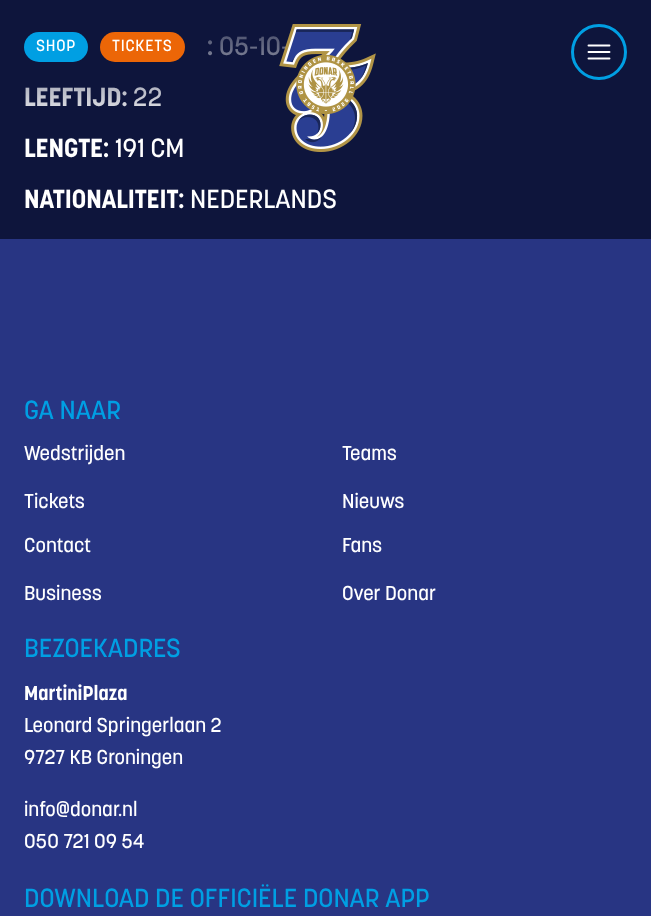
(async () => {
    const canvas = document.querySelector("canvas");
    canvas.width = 651;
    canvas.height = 916;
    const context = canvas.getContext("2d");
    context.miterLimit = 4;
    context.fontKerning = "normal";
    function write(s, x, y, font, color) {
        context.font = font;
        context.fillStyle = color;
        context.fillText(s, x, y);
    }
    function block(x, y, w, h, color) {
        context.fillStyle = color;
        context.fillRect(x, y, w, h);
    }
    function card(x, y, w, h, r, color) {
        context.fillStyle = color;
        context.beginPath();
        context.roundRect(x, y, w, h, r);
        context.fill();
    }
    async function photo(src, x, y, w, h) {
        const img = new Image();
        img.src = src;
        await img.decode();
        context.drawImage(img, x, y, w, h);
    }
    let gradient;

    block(0, 0, 651, 916, "rgb(14, 21, 60)");
    write(":", 207, 55, "bold 26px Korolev", "rgb(255, 255, 255)");
    write("05-10-", 219, 55, "500 26px Korolev", "rgb(255, 255, 255)");
    write("LEEFTIJD:", 24, 106, "bold 26px Korolev", "rgb(255, 255, 255)");
    write("22", 133, 106, "500 26px Korolev", "rgb(255, 255, 255)");
    write("LENGTE:", 24, 157, "bold 26px Korolev", "rgb(255, 255, 255)");
    write("191 CM", 115, 157, "500 26px Korolev", "rgb(255, 255, 255)");
    write("NATIONALITEIT:", 24, 208, "bold 26px Korolev", "rgb(255, 255, 255)");
    write("NEDERLANDS", 190, 208, "500 26px Korolev", "rgb(255, 255, 255)");
    gradient = context.createLinearGradient(326, 0, 326, 128);
    gradient.addColorStop(0, "rgb(14, 21, 60)");
    gradient.addColorStop(1, "rgba(14, 21, 60, 0)");
    context.fillStyle = gradient;
    context.fillRect(25, 36, 264, 71);
    card(24, 32, 64, 30, 15, "rgb(0, 159, 227)");
    context.letterSpacing = "0.75px";
    write("SHOP", 36, 51, "500 16px Korolev", "rgb(255, 255, 255)");
    card(100, 32, 85, 30, 15, "rgb(236, 102, 7)");
    write("TICKETS", 112, 51, "500 16px Korolev", "rgb(255, 255, 255)");
    await photo("media/1.png", 279, 24, 97, 128);
    context.beginPath();
    context.arc(599, 52, 26.5, 0, Math.PI * 2);
    context.strokeStyle = "rgb(0, 159, 227)";
    context.lineWidth = 3;
    context.stroke();
    context.beginPath();
    context.moveTo(588.5, 45.5);
    context.lineTo(609.5, 45.5);
    context.moveTo(588.5, 52);
    context.lineTo(609.5, 52);
    context.moveTo(588.5, 58.5);
    context.lineTo(609.5, 58.5);
    context.strokeStyle = "rgb(255, 255, 255)";
    context.lineWidth = 1.9;
    context.lineCap = "round";
    context.lineJoin = "round";
    context.stroke();
    block(0, 239, 651, 677, "rgb(40, 53, 131)");
    context.letterSpacing = "0px";
    write("GA NAAR", 24, 419, "500 26px Korolev", "rgb(0, 159, 227)");
    write("Wedstrijden", 24, 460, "500 20px Korolev", "rgb(255, 255, 255)");
    write("Teams", 342, 460, "500 20px Korolev", "rgb(255, 255, 255)");
    write("Tickets", 24, 508, "500 20px Korolev", "rgb(255, 255, 255)");
    write("Nieuws", 342, 508, "500 20px Korolev", "rgb(255, 255, 255)");
    write("Contact", 24, 552, "500 20px Korolev", "rgb(255, 255, 255)");
    write("Fans", 342, 552, "500 20px Korolev", "rgb(255, 255, 255)");
    write("Business", 24, 600, "500 20px Korolev", "rgb(255, 255, 255)");
    write("Over Donar", 342, 600, "500 20px Korolev", "rgb(255, 255, 255)");
    write("BEZOEKADRES", 24, 657, "500 26px Korolev", "rgb(0, 159, 227)");
    write("MartiniPlaza", 24, 700, "bold 20px Korolev", "rgb(255, 255, 255)");
    write("Leonard Springerlaan 2", 24, 732, "500 20px Korolev", "rgb(255, 255, 255)");
    write("9727 KB Groningen", 24, 764, "500 20px Korolev", "rgb(255, 255, 255)");
    write("info@donar.nl", 24, 816, "500 20px Korolev", "rgb(255, 255, 255)");
    write("050 721 09 54", 24, 848, "500 20px Korolev", "rgb(255, 255, 255)");
    write("DOWNLOAD DE OFFICIËLE DONAR APP", 24, 907, "500 26px Korolev", "rgb(0, 159, 227)");
})();
